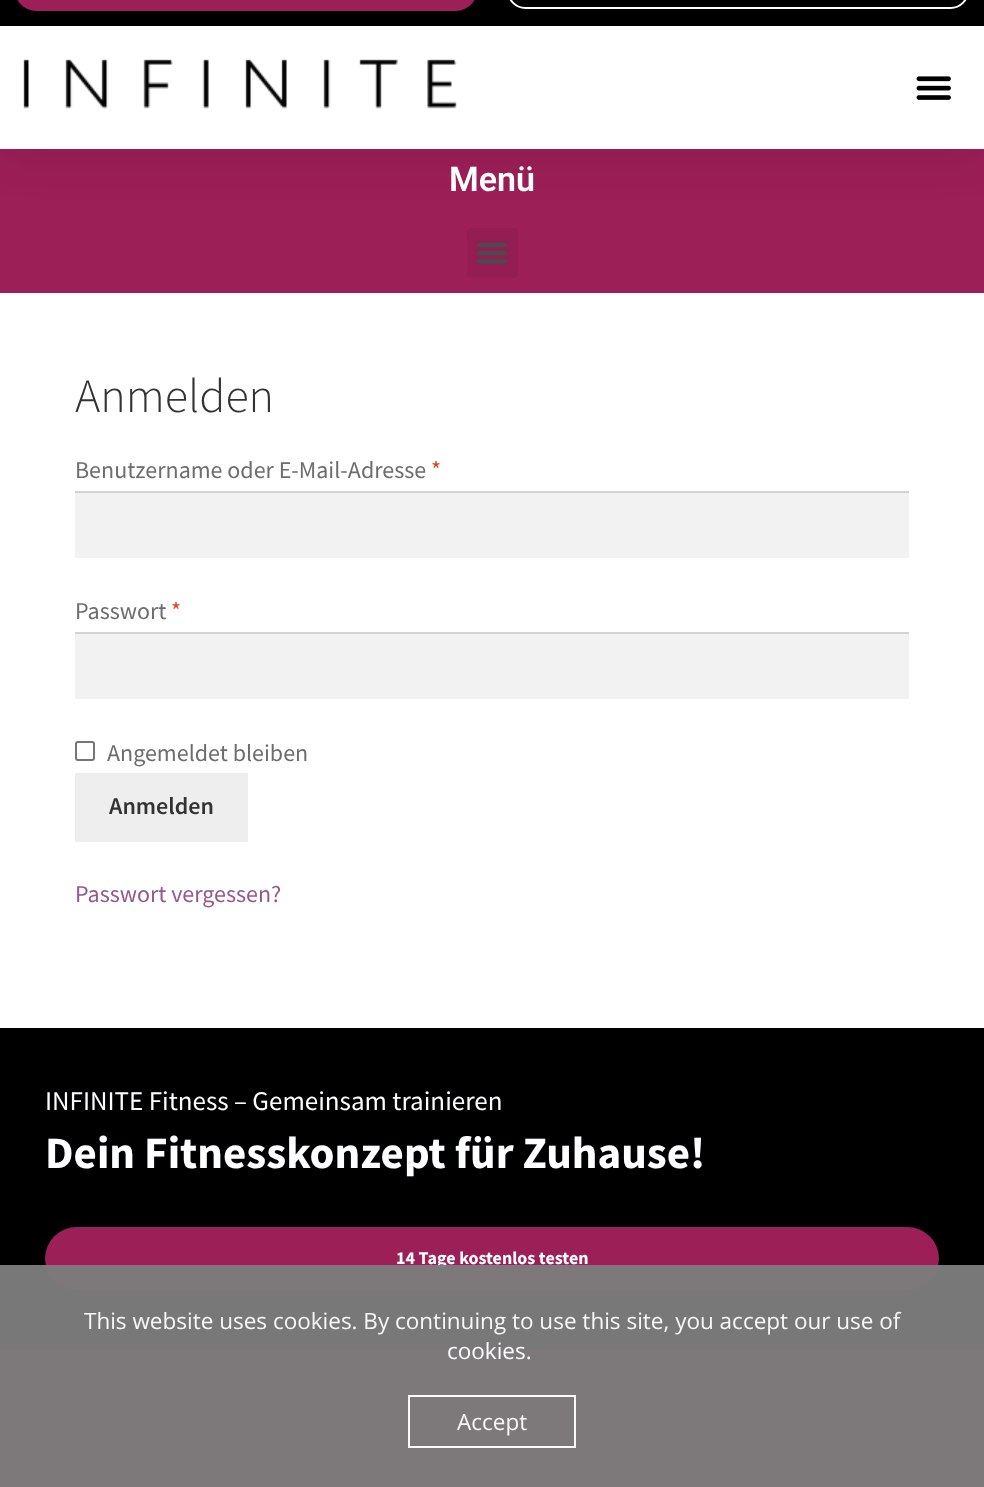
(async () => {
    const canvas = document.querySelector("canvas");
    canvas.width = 984;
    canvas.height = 1487;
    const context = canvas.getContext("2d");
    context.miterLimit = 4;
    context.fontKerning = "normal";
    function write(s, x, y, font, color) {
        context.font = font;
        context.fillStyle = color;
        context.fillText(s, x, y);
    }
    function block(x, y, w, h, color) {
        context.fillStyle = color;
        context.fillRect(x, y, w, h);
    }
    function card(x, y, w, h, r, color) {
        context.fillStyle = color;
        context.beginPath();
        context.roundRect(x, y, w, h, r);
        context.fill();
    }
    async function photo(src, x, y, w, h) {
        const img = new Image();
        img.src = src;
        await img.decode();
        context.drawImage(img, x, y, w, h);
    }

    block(0, 0, 984, 1487, "rgb(255, 255, 255)");
    block(0, 149, 984, 144, "rgb(156, 31, 87)");
    context.fillStyle = "rgba(0, 0, 0, 0.1)";
    context.filter = "blur(22.5px)";
    context.beginPath();
    context.rect(0, -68, 984, 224);
    context.fill();
    context.filter = "none";
    block(0, 0, 984, 26, "rgb(0, 0, 0)");
    context.fillStyle = "rgb(156, 31, 87)";
    context.beginPath();
    context.roundRect(16.5, -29.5, 459, 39, 26.5);
    context.fill();
    context.strokeStyle = "rgb(156, 31, 87)";
    context.lineWidth = 3;
    context.stroke();
    context.beginPath();
    context.roundRect(508, -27, 460, 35, 25);
    context.strokeStyle = "rgb(255, 255, 255)";
    context.lineWidth = 2;
    context.stroke();
    block(0, 26, 984, 123, "rgb(255, 255, 255)");
    await photo("media/1.png", 23, 59, 434, 50);
    await photo("media/2.png", 916, 76, 35, 24);
    write("Menü", 449, 191, "600 34px Roboto", "rgb(252, 254, 255)");
    card(467, 228, 51, 50, 5, "rgb(148, 29, 83)");
    await photo("media/3.png", 476, 242, 32, 22);
    write("Anmelden", 75, 412, "300 48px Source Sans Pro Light", "rgb(51, 51, 51)");
    write("Benutzername oder E-Mail-Adresse", 75, 478, "24px Source Sans Pro", "rgb(109, 109, 109)");
    write("*", 431, 478, "24px Source Sans Pro", "rgb(226, 64, 28)");
    block(75, 493, 834, 65, "rgb(242, 242, 242)");
    block(75, 491, 834, 2, "rgb(212, 212, 212)");
    write("Passwort", 75, 619, "24px Source Sans Pro", "rgb(109, 109, 109)");
    write("*", 171, 619, "24px Source Sans Pro", "rgb(226, 64, 28)");
    block(75, 634, 834, 65, "rgb(242, 242, 242)");
    block(75, 632, 834, 2, "rgb(212, 212, 212)");
    context.beginPath();
    context.roundRect(76, 742, 18, 18, 2);
    context.strokeStyle = "rgb(118, 118, 118)";
    context.stroke();
    write("Angemeldet bleiben", 107, 761, "24px Source Sans Pro", "rgb(109, 109, 109)");
    block(75, 773, 173, 69, "rgb(238, 238, 238)");
    write("Anmelden", 109, 814, "600 24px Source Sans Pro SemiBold", "rgb(51, 51, 51)");
    write("Passwort vergessen?", 75, 902, "24px Source Sans Pro", "rgb(150, 88, 138)");
    block(0, 1028, 984, 322, "rgb(0, 0, 0)");
    write("INFINITE Fitness – Gemeinsam trainieren", 45, 1110, "27px Source Sans Pro", "rgb(252, 254, 255)");
    write("Dein Fitnesskonzept für Zuhause!", 45, 1168, "bold 45px Source Sans Pro", "rgb(252, 254, 255)");
    card(45, 1227, 894, 63, 31.5, "rgb(156, 31, 87)");
    write("14 Tage kostenlos testen", 396, 1264, "bold 18px Source Sans Pro", "rgb(252, 254, 255)");
    block(0, 1350, 984, 137, "rgb(156, 31, 87)");
    block(0, 1265, 984, 222, "rgba(124, 124, 124, 0.97)");
    write("This website uses cookies. By continuing to use this site, you accept our use of", 84, 1329, "22.5px Open Sans", "rgb(247, 247, 247)");
    write("cookies.", 447, 1359, "22.5px Open Sans", "rgb(252, 254, 255)");
    context.strokeStyle = "rgba(255, 255, 255, 0.97)";
    context.strokeRect(409, 1396, 166, 51);
    write("Accept", 457, 1430, "22.5px Open Sans", "rgb(247, 247, 247)");
})();
